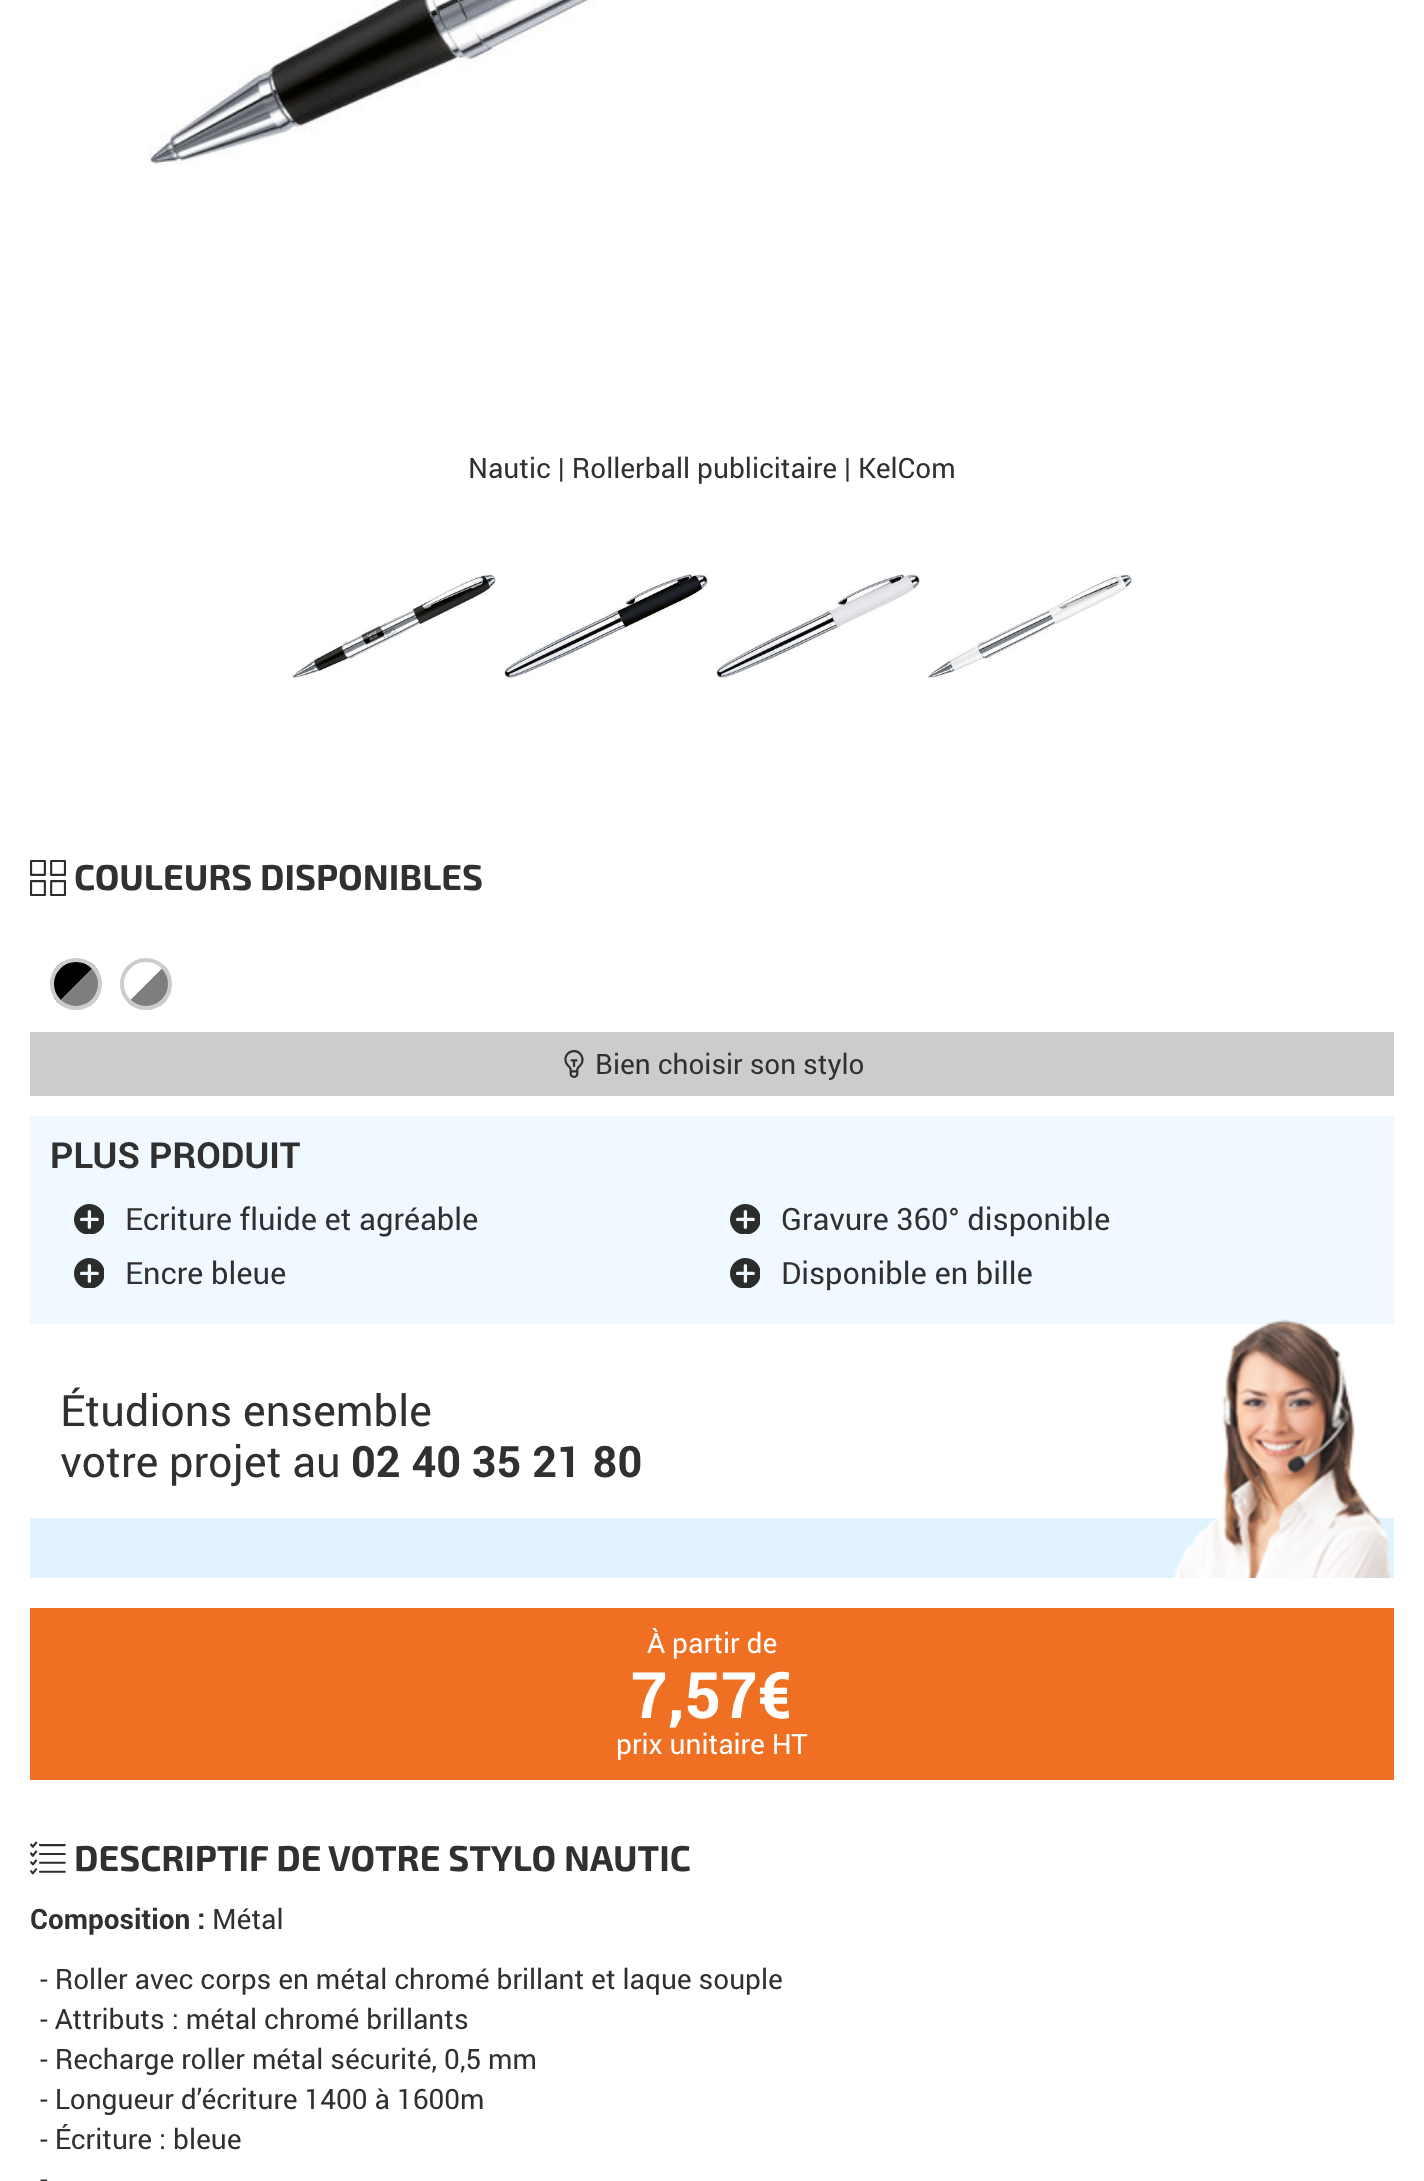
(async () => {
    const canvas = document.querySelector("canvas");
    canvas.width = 1424;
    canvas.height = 2181;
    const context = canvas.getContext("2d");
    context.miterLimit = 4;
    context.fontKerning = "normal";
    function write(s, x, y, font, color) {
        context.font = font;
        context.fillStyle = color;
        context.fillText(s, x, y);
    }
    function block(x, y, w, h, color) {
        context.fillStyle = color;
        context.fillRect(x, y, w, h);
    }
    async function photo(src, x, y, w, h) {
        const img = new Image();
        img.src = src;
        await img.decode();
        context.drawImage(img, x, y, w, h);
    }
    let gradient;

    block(0, 0, 1424, 2181, "rgb(255, 255, 255)");
    await photo("media/1.png", 148, 0, 447, 166);
    write("Nautic | Rollerball publicitaire | KelCom", 468, 478, "28px Roboto", "rgb(48, 48, 48)");
    await photo("media/2.png", 292, 574, 204, 104);
    await photo("media/3.png", 504, 574, 204, 104);
    await photo("media/4.png", 716, 574, 204, 104);
    await photo("media/5.png", 928, 574, 204, 104);
    await photo("media/6.png", 30, 860, 36, 36);
    write("COULEURS DISPONIBLES", 74, 890, "bold 36px 'Exo 2'", "rgb(48, 48, 48)");
    context.save();
    context.beginPath();
    context.roundRect(50, 958, 52, 52, 26);
    context.clip();
    gradient = context.createLinearGradient(54, 962, 98, 1006);
    gradient.addColorStop(0.5, "rgb(0, 0, 0)");
    gradient.addColorStop(0.5, "rgb(126, 126, 126)");
    context.fillStyle = gradient;
    context.fillRect(54, 962, 44, 44);
    context.restore();
    context.beginPath();
    context.arc(76, 984, 24, 0, Math.PI * 2);
    context.strokeStyle = "rgb(204, 204, 204)";
    context.lineWidth = 4;
    context.stroke();
    context.save();
    context.beginPath();
    context.roundRect(120, 958, 52, 52, 26);
    context.clip();
    gradient = context.createLinearGradient(124, 962, 168, 1006);
    gradient.addColorStop(0.5, "rgb(255, 255, 255)");
    gradient.addColorStop(0.5, "rgb(126, 126, 126)");
    context.fillStyle = gradient;
    context.fillRect(124, 962, 44, 44);
    context.restore();
    context.beginPath();
    context.arc(146, 984, 24, 0, Math.PI * 2);
    context.stroke();
    block(30, 1032, 1364, 64, "rgb(204, 204, 204)");
    await photo("media/7.png", 564, 1050, 20, 28);
    write("Bien choisir son stylo", 595, 1074, "28px Roboto", "rgb(48, 48, 48)");
    block(30, 1116, 1364, 208, "rgb(240, 249, 255)");
    write("PLUS PRODUIT", 50, 1168, "bold 36px Roboto", "rgb(48, 48, 48)");
    await photo("media/8.png", 74, 1204, 30, 30);
    write("Ecriture fluide et agréable", 125, 1230, "30.75px Roboto", "rgb(48, 48, 48)");
    await photo("media/8.png", 730, 1204, 30, 30);
    write("Gravure 360° disponible", 781, 1230, "30.75px Roboto", "rgb(48, 48, 48)");
    await photo("media/8.png", 74, 1258, 30, 30);
    write("Encre bleue", 125, 1284, "30.75px Roboto", "rgb(48, 48, 48)");
    await photo("media/8.png", 730, 1258, 30, 30);
    write("Disponible en bille", 781, 1284, "30.75px Roboto", "rgb(48, 48, 48)");
    block(30, 1518, 1364, 60, "rgb(225, 243, 254)");
    await photo("media/9.png", 1174, 1319, 218, 259);
    write("Étudions ensemble", 60, 1426, "43.25px Roboto", "rgb(48, 48, 48)");
    write("votre projet au", 60, 1477, "43.25px Roboto", "rgb(48, 48, 48)");
    write("02 40 35 21 80", 351, 1477, "bold 43.25px Roboto", "rgb(48, 48, 48)");
    block(30, 1608, 1364, 172, "rgb(239, 112, 35)");
    write("À partir de", 647, 1653, "28px Roboto", "rgb(255, 255, 255)");
    write("7,57€", 631, 1718, "bold 64px Roboto", "rgb(255, 255, 255)");
    write("prix unitaire HT", 616, 1754, "28px Roboto", "rgb(255, 255, 255)");
    await photo("media/10.png", 30, 1841, 36, 34);
    write("DESCRIPTIF DE", 74, 1871, "bold 36px 'Exo 2'", "rgb(48, 48, 48)");
    write("VOTRE STYLO NAUTIC", 328, 1871, "bold 36px 'Exo 2'", "rgb(48, 48, 48)");
    write("Composition :", 30, 1929, "bold 28px Roboto", "rgb(48, 48, 48)");
    write("Métal", 212, 1929, "28px Roboto", "rgb(48, 48, 48)");
    write("- Roller avec corps en métal chromé brillant et laque souple", 40, 1989, "28px Roboto", "rgb(48, 48, 48)");
    write("- Attributs : métal chromé brillants", 40, 2029, "28px Roboto", "rgb(48, 48, 48)");
    write("- Recharge roller métal sécurité, 0,5 mm", 40, 2069, "28px Roboto", "rgb(48, 48, 48)");
    write("- Longueur d’écriture 1400 à 1600m", 40, 2109, "28px Roboto", "rgb(48, 48, 48)");
    write("- Écriture : bleue", 40, 2149, "28px Roboto", "rgb(48, 48, 48)");
    write("-", 40, 2189, "28px Roboto", "rgb(48, 48, 48)");
})();
